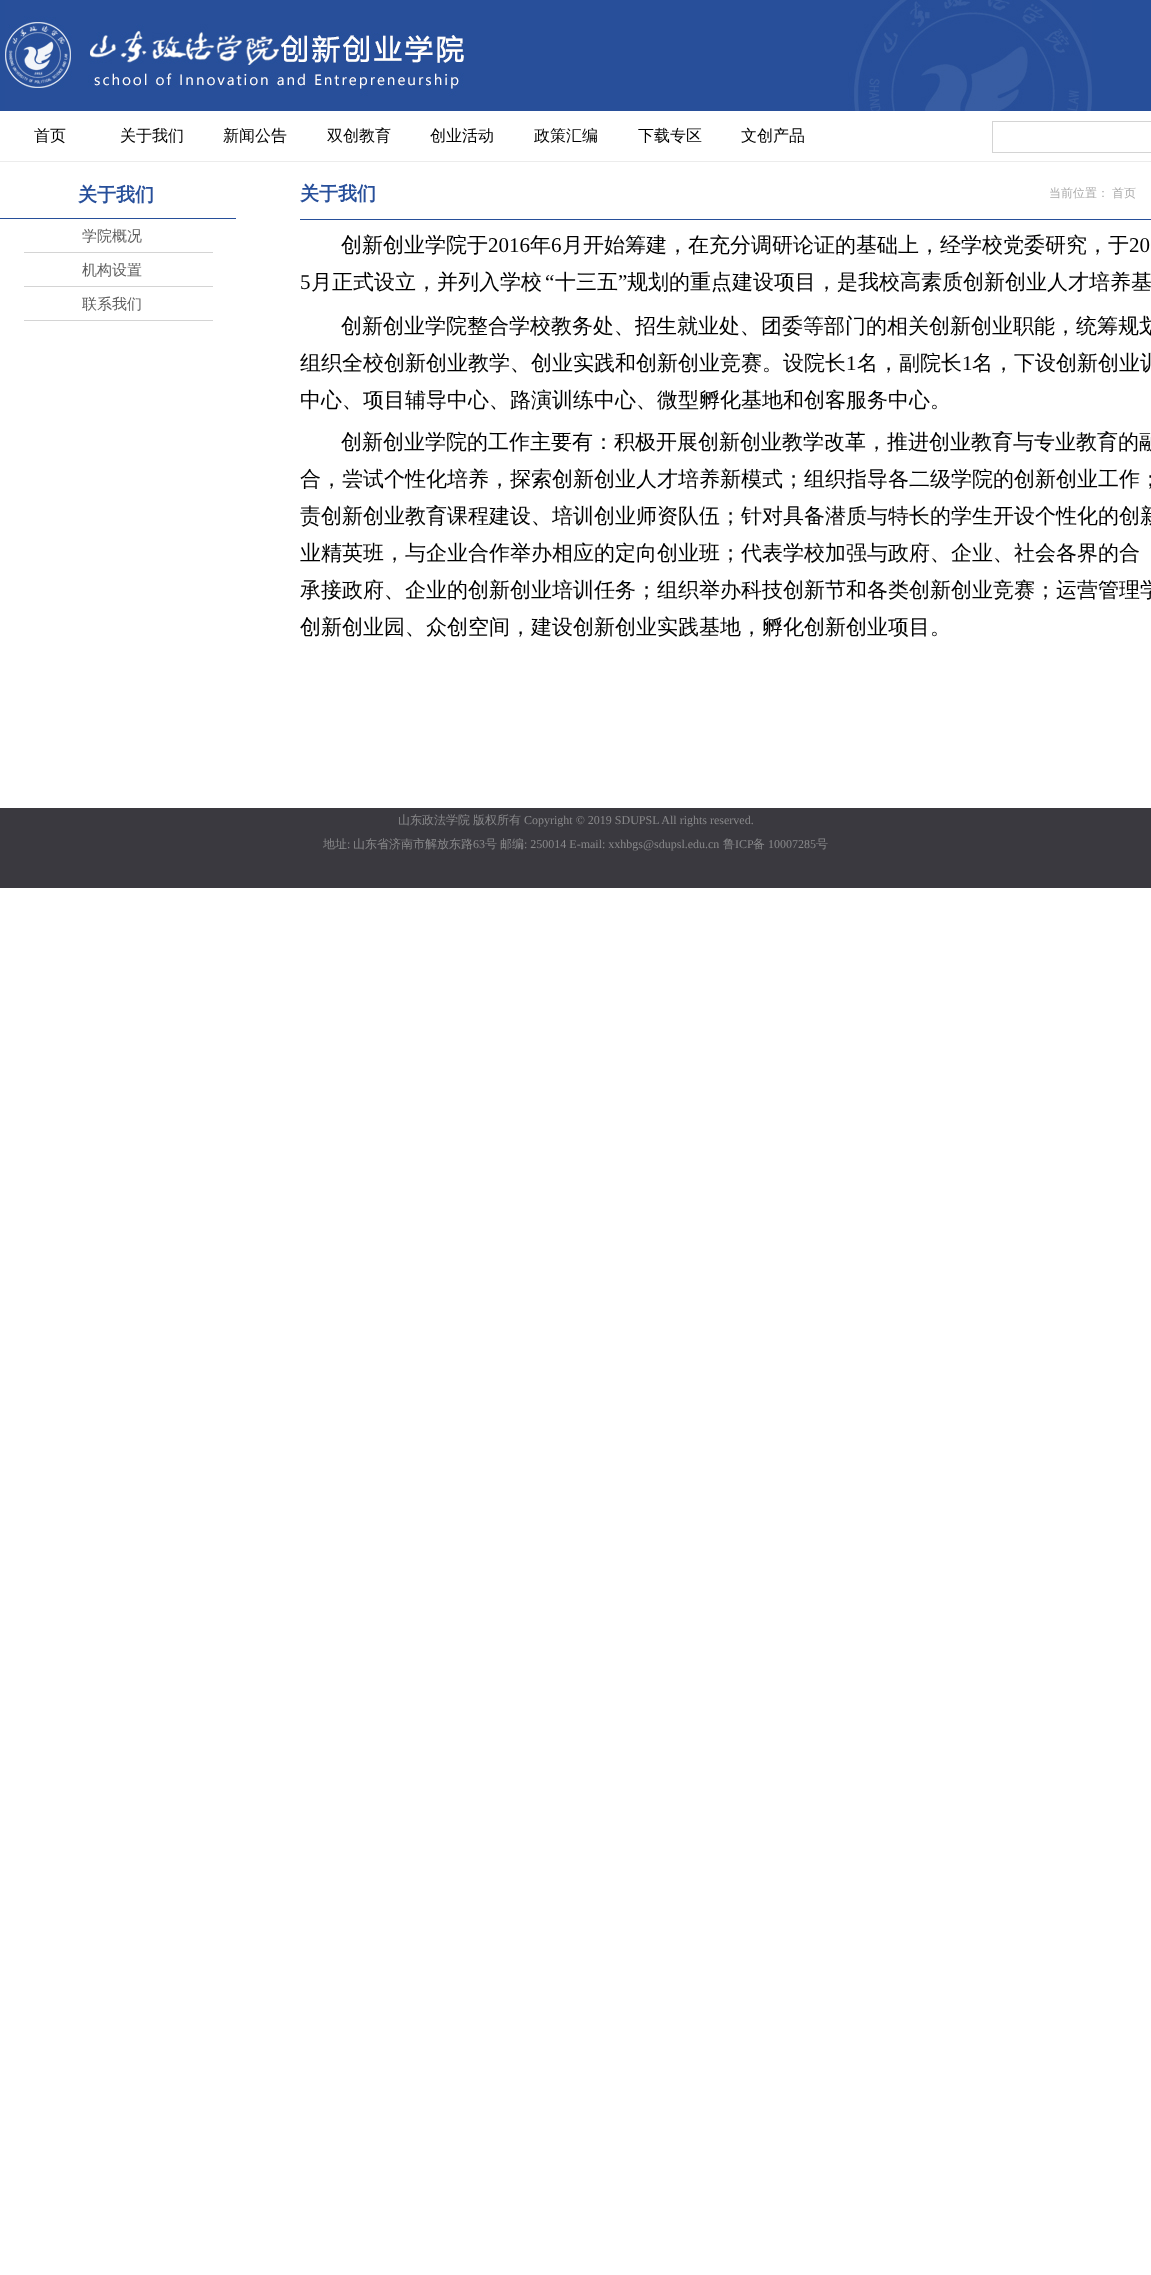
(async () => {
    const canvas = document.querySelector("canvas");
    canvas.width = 1151;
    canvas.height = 2275;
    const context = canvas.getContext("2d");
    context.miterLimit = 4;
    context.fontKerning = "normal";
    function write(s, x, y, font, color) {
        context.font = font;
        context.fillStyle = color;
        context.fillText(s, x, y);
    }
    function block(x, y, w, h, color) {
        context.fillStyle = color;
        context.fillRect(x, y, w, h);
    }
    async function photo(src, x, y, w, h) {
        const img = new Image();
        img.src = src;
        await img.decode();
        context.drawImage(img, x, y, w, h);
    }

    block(0, 0, 1151, 2275, "rgb(255, 255, 255)");
    block(0, 0, 1151, 111, "rgb(39, 79, 154)");
    await photo("media/1.png", 5, 0, 1087, 111);
    write("首页", 34, 141, "500 16px WenQuanYi Zen Hei", "rgb(0, 0, 0)");
    write("关于我们", 120, 141, "500 16px WenQuanYi Zen Hei", "rgb(0, 0, 0)");
    write("新闻公告", 223, 141, "500 16px WenQuanYi Zen Hei", "rgb(0, 0, 0)");
    write("双创教育", 327, 141, "500 16px WenQuanYi Zen Hei", "rgb(0, 0, 0)");
    write("创业活动", 430, 141, "500 16px WenQuanYi Zen Hei", "rgb(0, 0, 0)");
    write("政策汇编", 534, 141, "500 16px WenQuanYi Zen Hei", "rgb(0, 0, 0)");
    write("下载专区", 638, 141, "500 16px WenQuanYi Zen Hei", "rgb(0, 0, 0)");
    write("文创产品", 741, 141, "500 16px WenQuanYi Zen Hei", "rgb(0, 0, 0)");
    context.strokeStyle = "rgb(212, 212, 212)";
    context.strokeRect(992.5, 121.5, 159, 31);
    block(0, 161, 1151, 1, "rgb(236, 236, 236)");
    write("关于我们", 78, 201, "bold 19px WenQuanYi Zen Hei", "rgb(39, 79, 154)");
    block(0, 218, 236, 1, "rgb(39, 79, 154)");
    block(24, 252, 189, 1, "rgb(212, 212, 212)");
    write("学院概况", 82, 241, "500 15px WenQuanYi Zen Hei", "rgb(95, 95, 95)");
    block(24, 286, 189, 1, "rgb(212, 212, 212)");
    write("机构设置", 82, 275, "500 15px WenQuanYi Zen Hei", "rgb(95, 95, 95)");
    block(24, 320, 189, 1, "rgb(212, 212, 212)");
    write("联系我们", 82, 309, "500 15px WenQuanYi Zen Hei", "rgb(95, 95, 95)");
    block(300, 219, 851, 1, "rgb(39, 79, 154)");
    write("关于我们", 300, 200, "bold 19px WenQuanYi Zen Hei", "rgb(39, 79, 154)");
    write("当前位置：", 1049, 197, "500 12px WenQuanYi Zen Hei", "rgb(171, 171, 171)");
    write("首页", 1112, 197, "500 12px WenQuanYi Zen Hei", "rgb(171, 171, 171)");
    write("创新创业学院于", 341, 252, "500 21px WenQuanYi Zen Hei", "rgb(0, 0, 0)");
    write("2016", 488, 252, "21px Liberation Serif", "rgb(0, 0, 0)");
    write("年", 530, 252, "500 21px WenQuanYi Zen Hei", "rgb(0, 0, 0)");
    write("6", 551, 252, "21px Liberation Serif", "rgb(0, 0, 0)");
    write("月开始筹建，在充分调研论证的基础上，经学校党委研究，于", 562, 252, "500 21px WenQuanYi Zen Hei", "rgb(0, 0, 0)");
    write("20", 1129, 252, "21px Liberation Serif", "rgb(0, 0, 0)");
    write("5", 300, 289, "21px Liberation Serif", "rgb(0, 0, 0)");
    write("月正式设立，并列入学校", 311, 289, "500 21px WenQuanYi Zen Hei", "rgb(0, 0, 0)");
    write("“", 545, 289, "21px Liberation Serif", "rgb(0, 0, 0)");
    write("十三五", 555, 289, "500 21px WenQuanYi Zen Hei", "rgb(0, 0, 0)");
    write("”", 618, 289, "21px Liberation Serif", "rgb(0, 0, 0)");
    write("规划的重点建设项目，是我校高素质创新创业人才培养基", 627, 289, "500 21px WenQuanYi Zen Hei", "rgb(0, 0, 0)");
    write("创新创业学院整合学校教务处、招生就业处、团委等部门的相关创新创业职能，统筹规划", 341, 333, "500 21px WenQuanYi Zen Hei", "rgb(0, 0, 0)");
    write("组织全校创新创业教学、创业实践和创新创业竞赛。设院长", 300, 370, "500 21px WenQuanYi Zen Hei", "rgb(0, 0, 0)");
    write("1", 846, 370, "21px Liberation Serif", "rgb(0, 0, 0)");
    write("名，副院长", 857, 370, "500 21px WenQuanYi Zen Hei", "rgb(0, 0, 0)");
    write("1", 962, 370, "21px Liberation Serif", "rgb(0, 0, 0)");
    write("名，下设创新创业训", 972, 370, "500 21px WenQuanYi Zen Hei", "rgb(0, 0, 0)");
    write("中心、项目辅导中心、路演训练中心、微型孵化基地和创客服务中心。", 300, 407, "500 21px WenQuanYi Zen Hei", "rgb(0, 0, 0)");
    write("创新创业学院的工作主要有：积极开展创新创业教学改革，推进创业教育与专业教育的融", 341, 449, "500 21px WenQuanYi Zen Hei", "rgb(0, 0, 0)");
    write("合，尝试个性化培养，探索创新创业人才培养新模式；组织指导各二级学院的创新创业工作；", 300, 486, "500 21px WenQuanYi Zen Hei", "rgb(0, 0, 0)");
    write("责创新创业教育课程建设、培训创业师资队伍；针对具备潜质与特长的学生开设个性化的创新", 300, 523, "500 21px WenQuanYi Zen Hei", "rgb(0, 0, 0)");
    write("业精英班，与企业合作举办相应的定向创业班；代表学校加强与政府、企业、社会各界的合", 300, 560, "500 21px WenQuanYi Zen Hei", "rgb(0, 0, 0)");
    write("承接政府、企业的创新创业培训任务；组织举办科技创新节和各类创新创业竞赛；运营管理学", 300, 597, "500 21px WenQuanYi Zen Hei", "rgb(0, 0, 0)");
    write("创新创业园、众创空间，建设创新创业实践基地，孵化创新创业项目。", 300, 634, "500 21px WenQuanYi Zen Hei", "rgb(0, 0, 0)");
    block(0, 808, 1151, 80, "rgb(58, 57, 63)");
    write("山东政法学院", 398, 824, "500 12px WenQuanYi Zen Hei", "rgb(136, 136, 138)");
    write("版权所有", 473, 824, "500 12px WenQuanYi Zen Hei", "rgb(136, 136, 138)");
    write("Copyright © 2019 SDUPSL All rights reserved.", 524, 824, "12px Liberation Serif", "rgb(136, 136, 138)");
    write("地址", 323, 848, "500 12px WenQuanYi Zen Hei", "rgb(136, 136, 138)");
    write(":", 347, 848, "12px Liberation Serif", "rgb(136, 136, 138)");
    write("山东省济南市解放东路", 353, 848, "500 12px WenQuanYi Zen Hei", "rgb(136, 136, 138)");
    write("63", 473, 848, "12px Liberation Serif", "rgb(136, 136, 138)");
    write("号", 485, 848, "500 12px WenQuanYi Zen Hei", "rgb(136, 136, 138)");
    write("邮编", 500, 848, "500 12px WenQuanYi Zen Hei", "rgb(136, 136, 138)");
    write(": 250014 E-mail: xxhbgs@sdupsl.edu.cn", 524, 848, "12px Liberation Serif", "rgb(136, 136, 138)");
    write("鲁", 723, 848, "500 12px WenQuanYi Zen Hei", "rgb(136, 136, 138)");
    write("ICP", 735, 848, "12px Liberation Serif", "rgb(136, 136, 138)");
    write("备", 753, 848, "500 12px WenQuanYi Zen Hei", "rgb(136, 136, 138)");
    write("10007285", 768, 848, "12px Liberation Serif", "rgb(136, 136, 138)");
    write("号", 816, 848, "500 12px WenQuanYi Zen Hei", "rgb(136, 136, 138)");
})();
